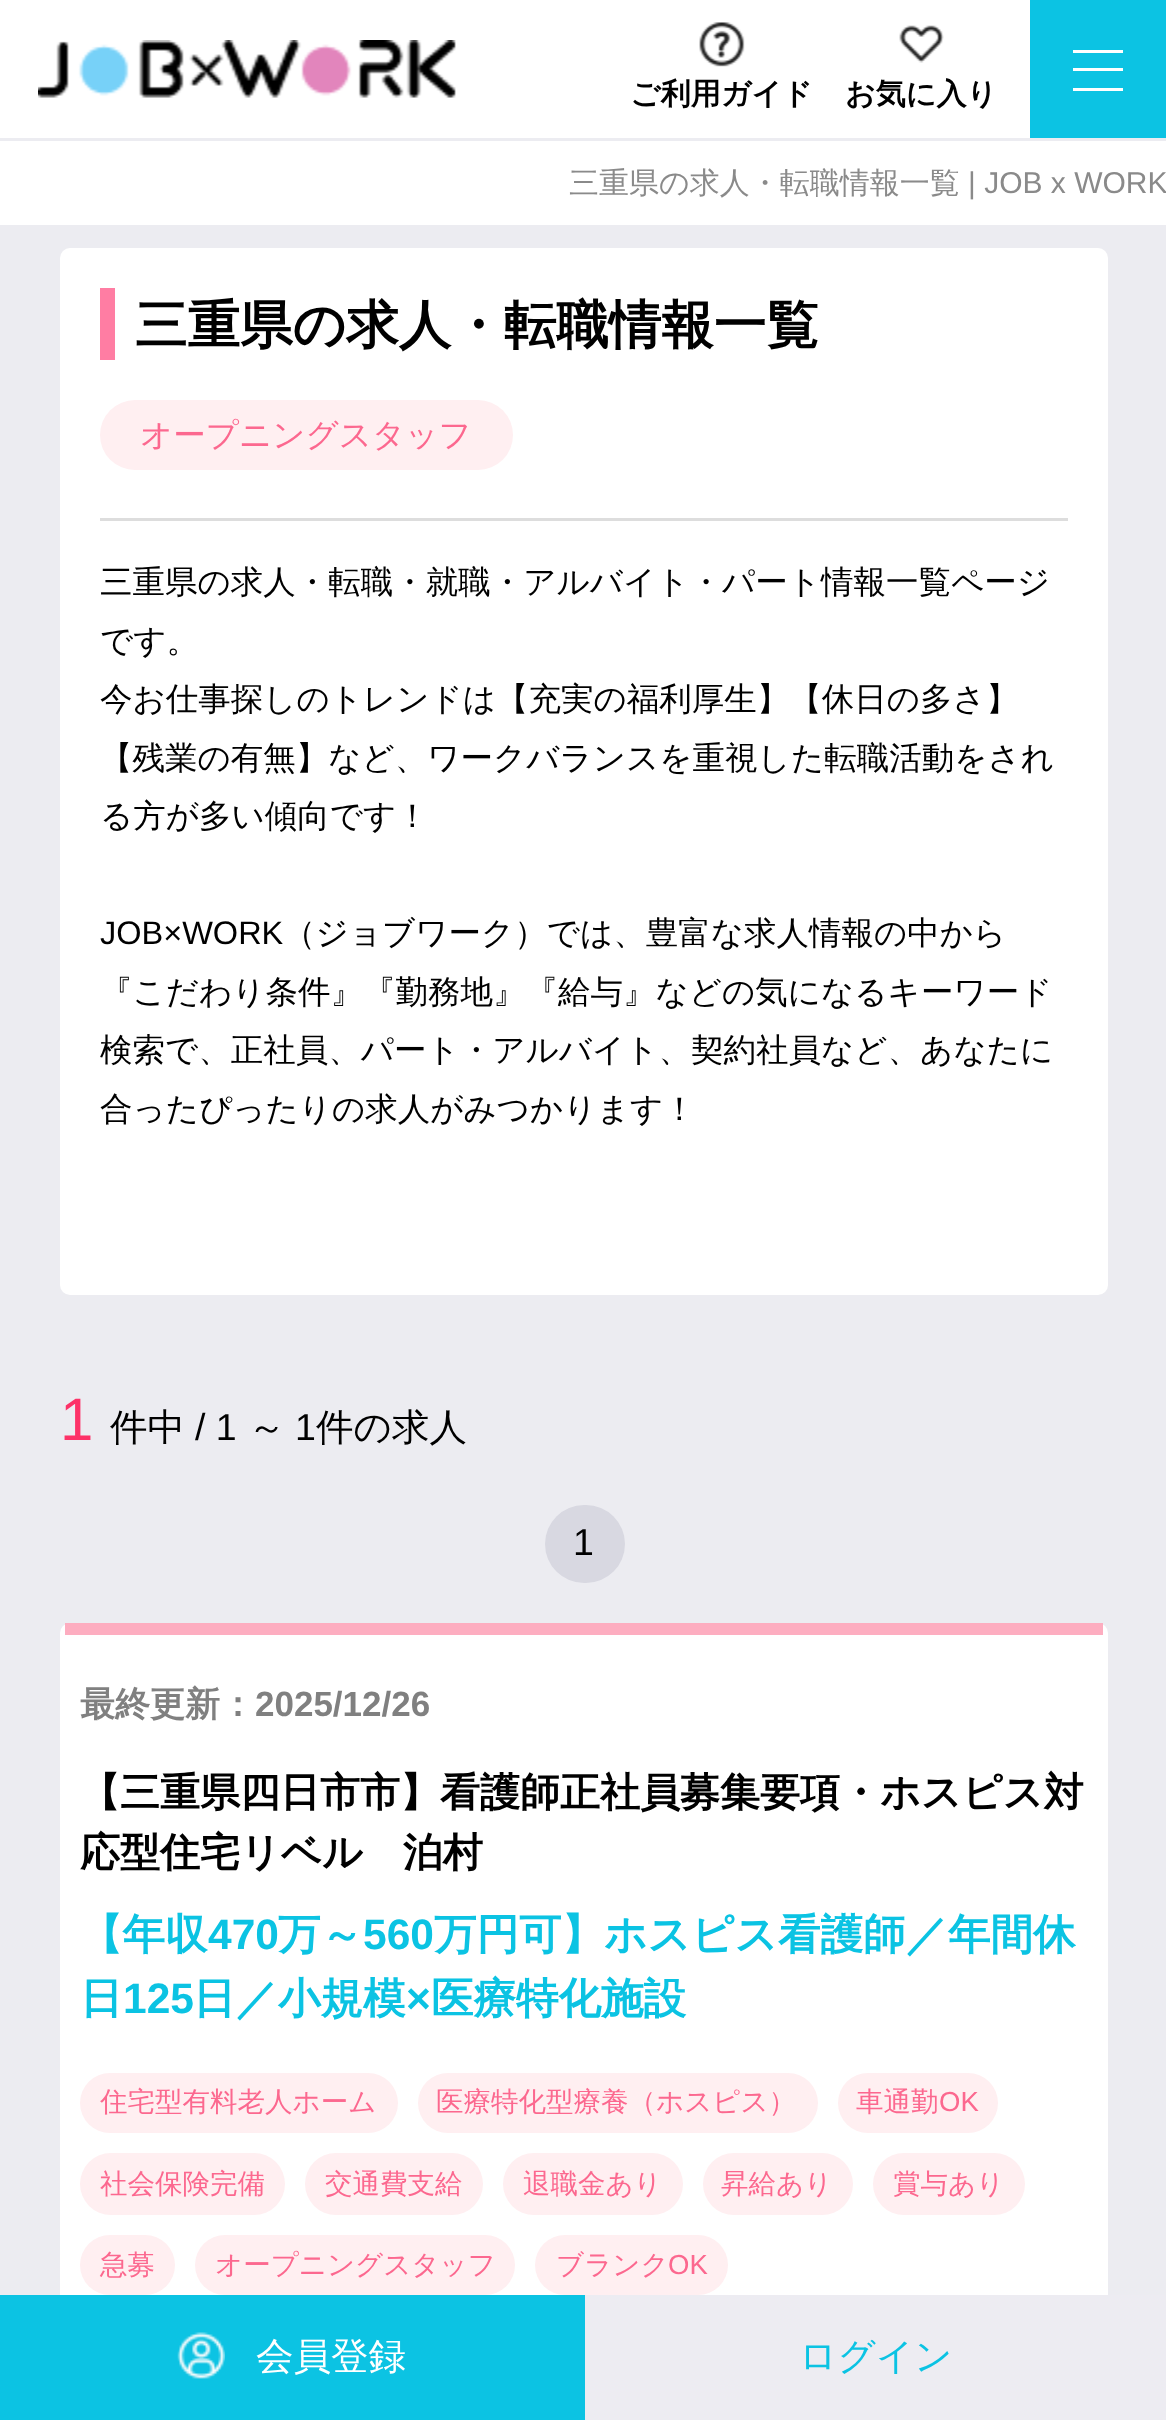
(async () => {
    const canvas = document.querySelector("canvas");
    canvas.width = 1166;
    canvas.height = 2420;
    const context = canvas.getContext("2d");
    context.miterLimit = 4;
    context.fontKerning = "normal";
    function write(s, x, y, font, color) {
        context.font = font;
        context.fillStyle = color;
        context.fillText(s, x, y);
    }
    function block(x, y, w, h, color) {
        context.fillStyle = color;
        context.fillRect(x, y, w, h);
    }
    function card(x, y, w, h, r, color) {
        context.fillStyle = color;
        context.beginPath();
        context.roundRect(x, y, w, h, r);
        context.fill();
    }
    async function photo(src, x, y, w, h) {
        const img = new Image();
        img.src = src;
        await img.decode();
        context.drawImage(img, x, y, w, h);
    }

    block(0, 0, 1166, 2420, "rgb(255, 255, 255)");
    await photo("media/1.png", 38, 40, 418, 58);
    await photo("media/2.png", 699, 22, 46, 45);
    write("ご利用ガイド", 630, 104, "bold 30px WenQuanYi Zen Hei", "rgb(0, 0, 0)");
    await photo("media/3.png", 899, 25, 45, 38);
    write("お気に入り", 845, 104, "bold 30px WenQuanYi Zen Hei", "rgb(0, 0, 0)");
    block(1030, 0, 136, 138, "rgb(12, 195, 227)");
    block(1073, 50, 50, 3, "rgb(255, 255, 255)");
    block(1073, 68, 50, 3, "rgb(255, 255, 255)");
    block(1073, 88, 50, 3, "rgb(255, 255, 255)");
    block(0, 138, 1166, 3, "rgb(236, 236, 241)");
    block(0, 225, 1166, 2070, "rgb(236, 236, 241)");
    write("三重県の求⼈・転職情報⼀覧", 569, 193, "500 30px WenQuanYi Zen Hei", "rgb(138, 138, 138)");
    write("| JOB x WORK", 968, 193, "30px Liberation Sans", "rgb(138, 138, 138)");
    card(60, 248, 1048, 1047, 10, "rgb(255, 255, 255)");
    block(100, 288, 15, 72, "rgb(255, 125, 163)");
    write("三重県の求人・転職情報一覧", 135, 343, "bold 52.5px WenQuanYi Zen Hei", "rgb(0, 0, 0)");
    card(100, 400, 413, 70, 35, "rgb(255, 239, 241)");
    write("オープニングスタッフ", 140, 446, "500 32.5px WenQuanYi Zen Hei", "rgb(252, 104, 143)");
    block(100, 518, 968, 3, "rgb(221, 221, 221)");
    write("三重県の求人・転職・就職・アルバイト・パート情報一覧ページ", 100, 593, "500 32.5px WenQuanYi Zen Hei", "rgb(0, 0, 0)");
    write("です。", 100, 652, "500 32.5px WenQuanYi Zen Hei", "rgb(0, 0, 0)");
    write("今お仕事探しのトレンドは【充実の福利厚生】【休日の多さ】", 100, 710, "500 32.5px WenQuanYi Zen Hei", "rgb(0, 0, 0)");
    write("【残業の有無】など、ワークバランスを重視した転職活動をされ", 100, 769, "500 32.5px WenQuanYi Zen Hei", "rgb(0, 0, 0)");
    write("る方が多い傾向です！", 100, 827, "500 32.5px WenQuanYi Zen Hei", "rgb(0, 0, 0)");
    write("JOB×WORK", 100, 944, "32.5px Liberation Sans", "rgb(0, 0, 0)");
    write("（ジョブワーク）では、豊富な求人情報の中から", 283, 944, "500 32.5px WenQuanYi Zen Hei", "rgb(0, 0, 0)");
    write("『こだわり条件』『勤務地』『給与』などの気になるキーワード", 100, 1003, "500 32.5px WenQuanYi Zen Hei", "rgb(0, 0, 0)");
    write("検索で、正社員、パート・アルバイト、契約社員など、あなたに", 100, 1061, "500 32.5px WenQuanYi Zen Hei", "rgb(0, 0, 0)");
    write("合ったぴったりの求人がみつかります！", 100, 1120, "500 32.5px WenQuanYi Zen Hei", "rgb(0, 0, 0)");
    write("1", 60, 1440, "60px Liberation Sans", "rgb(253, 50, 104)");
    write("件中", 110, 1440, "500 37.5px WenQuanYi Zen Hei", "rgb(0, 0, 0)");
    write("/ 1", 195, 1440, "37.5px Liberation Sans", "rgb(0, 0, 0)");
    write("～", 248, 1440, "500 37.5px WenQuanYi Zen Hei", "rgb(0, 0, 0)");
    write("1", 295, 1440, "37.5px Liberation Sans", "rgb(0, 0, 0)");
    write("件の求人", 316, 1440, "500 37.5px WenQuanYi Zen Hei", "rgb(0, 0, 0)");
    card(545, 1505, 80, 78, 39, "rgb(216, 216, 225)");
    write("1", 573, 1555, "37.5px Liberation Sans", "rgb(0, 0, 0)");
    card(60, 1623, 1048, 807, 10, "rgb(255, 255, 255)");
    block(65, 1623, 1038, 12, "rgb(253, 173, 192)");
    write("最終更新：", 80, 1716, "bold 35px WenQuanYi Zen Hei", "rgb(128, 128, 128)");
    write("2025/12/26", 255, 1716, "bold 35px Liberation Sans", "rgb(128, 128, 128)");
    write("【三重県四日市市】看護師正社員募集要項・ホスピス対", 80, 1806, "bold 40px WenQuanYi Zen Hei", "rgb(0, 0, 0)");
    write("応型住宅リベル　泊村", 80, 1866, "bold 40px WenQuanYi Zen Hei", "rgb(0, 0, 0)");
    write("【年収", 80, 1949, "bold 42.5px WenQuanYi Zen Hei", "rgb(11, 195, 227)");
    write("470", 208, 1949, "bold 42.5px Liberation Sans", "rgb(11, 195, 227)");
    write("万～", 278, 1949, "bold 42.5px WenQuanYi Zen Hei", "rgb(11, 195, 227)");
    write("560", 363, 1949, "bold 42.5px Liberation Sans", "rgb(11, 195, 227)");
    write("万円可】ホスピス看護師／年間休", 434, 1949, "bold 42.5px WenQuanYi Zen Hei", "rgb(11, 195, 227)");
    write("日", 80, 2013, "bold 42.5px WenQuanYi Zen Hei", "rgb(11, 195, 227)");
    write("125", 123, 2013, "bold 42.5px Liberation Sans", "rgb(11, 195, 227)");
    write("日／小規模", 193, 2013, "bold 42.5px WenQuanYi Zen Hei", "rgb(11, 195, 227)");
    write("×", 406, 2013, "bold 42.5px Liberation Sans", "rgb(11, 195, 227)");
    write("医療特化施設", 431, 2013, "bold 42.5px WenQuanYi Zen Hei", "rgb(11, 195, 227)");
    card(80, 2073, 318, 60, 30, "rgb(255, 239, 241)");
    write("住宅型有料老人ホーム", 100, 2111, "500 27.5px WenQuanYi Zen Hei", "rgb(252, 104, 143)");
    card(418, 2073, 400, 60, 30, "rgb(255, 239, 241)");
    write("医療特化型療養（ホスピス）", 436, 2111, "500 27.5px WenQuanYi Zen Hei", "rgb(252, 104, 143)");
    card(838, 2073, 160, 60, 30, "rgb(255, 239, 241)");
    write("車通勤", 856, 2111, "500 27.5px WenQuanYi Zen Hei", "rgb(252, 104, 143)");
    write("OK", 939, 2111, "27.5px Liberation Sans", "rgb(252, 104, 143)");
    card(80, 2153, 205, 62, 31, "rgb(255, 239, 241)");
    write("社会保険完備", 100, 2193, "500 27.5px WenQuanYi Zen Hei", "rgb(252, 104, 143)");
    card(305, 2153, 178, 62, 31, "rgb(255, 239, 241)");
    write("交通費支給", 325, 2193, "500 27.5px WenQuanYi Zen Hei", "rgb(252, 104, 143)");
    card(503, 2153, 180, 62, 31, "rgb(255, 239, 241)");
    write("退職金あり", 523, 2193, "500 27.5px WenQuanYi Zen Hei", "rgb(252, 104, 143)");
    card(703, 2153, 150, 62, 31, "rgb(255, 239, 241)");
    write("昇給あり", 721, 2193, "500 27.5px WenQuanYi Zen Hei", "rgb(252, 104, 143)");
    card(873, 2153, 152, 62, 31, "rgb(255, 239, 241)");
    write("賞与あり", 893, 2193, "500 27.5px WenQuanYi Zen Hei", "rgb(252, 104, 143)");
    card(80, 2235, 95, 60, 30, "rgb(255, 239, 241)");
    write("急募", 100, 2274, "500 27.5px WenQuanYi Zen Hei", "rgb(252, 104, 143)");
    card(195, 2235, 320, 60, 30, "rgb(255, 239, 241)");
    write("オープニングスタッフ", 215, 2274, "500 27.5px WenQuanYi Zen Hei", "rgb(252, 104, 143)");
    card(535, 2235, 193, 60, 30, "rgb(255, 239, 241)");
    write("ブランク", 556, 2274, "500 27.5px WenQuanYi Zen Hei", "rgb(252, 104, 143)");
    write("OK", 668, 2274, "27.5px Liberation Sans", "rgb(252, 104, 143)");
    block(0, 2295, 585, 125, "rgb(12, 195, 227)");
    await photo("media/4.png", 177, 2332, 48, 47);
    write("会員登録", 256, 2369, "500 37.5px WenQuanYi Zen Hei", "rgb(255, 255, 255)");
    block(585, 2295, 581, 125, "rgb(237, 236, 242)");
    write("ログイン", 799, 2369, "500 37.5px WenQuanYi Zen Hei", "rgb(11, 195, 227)");
})();
